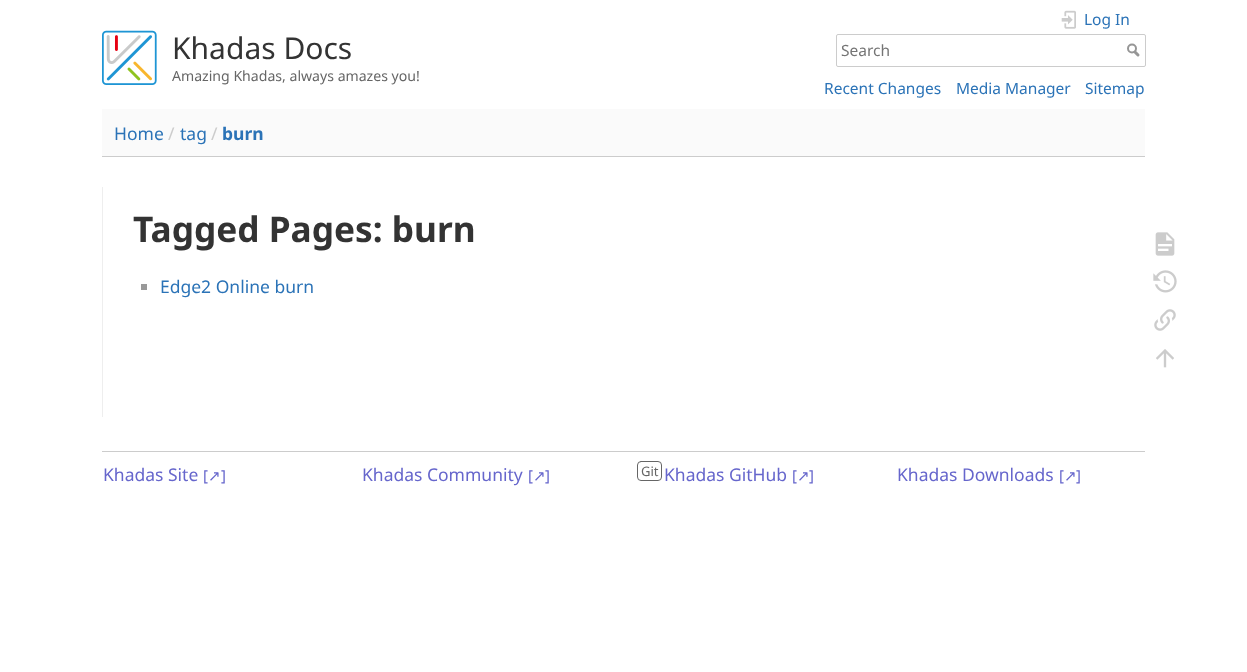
(async () => {
    const canvas = document.querySelector("canvas");
    canvas.width = 1247;
    canvas.height = 672;
    const context = canvas.getContext("2d");
    context.miterLimit = 4;
    context.fontKerning = "normal";
    function write(s, x, y, font, color) {
        context.font = font;
        context.fillStyle = color;
        context.fillText(s, x, y);
    }
    function block(x, y, w, h, color) {
        context.fillStyle = color;
        context.fillRect(x, y, w, h);
    }
    async function photo(src, x, y, w, h) {
        const img = new Image();
        img.src = src;
        await img.decode();
        context.drawImage(img, x, y, w, h);
    }

    block(0, 0, 1247, 672, "rgb(255, 255, 255)");
    await photo("media/1.png", 102, 30, 55, 55);
    write("Khadas Docs", 172, 59, "30px Noto Sans", "rgb(51, 51, 51)");
    write("Amazing Khadas, always amazes you!", 172, 81, "14.1px Noto Sans", "rgb(102, 102, 102)");
    await photo("media/2.png", 1061, 10, 15, 19);
    write("Log In", 1084, 25, "15.5px Noto Sans", "rgb(43, 115, 183)");
    context.beginPath();
    context.roundRect(836.5, 34.5, 309, 32, 1.5);
    context.strokeStyle = "rgb(204, 204, 204)";
    context.stroke();
    write("Search", 841, 56, "15.5px Noto Sans", "rgb(117, 117, 117)");
    context.beginPath();
    context.arc(1132, 48.5, 4, 0, Math.PI * 2);
    context.strokeStyle = "rgb(150, 150, 150)";
    context.lineWidth = 2;
    context.stroke();
    context.beginPath();
    context.moveTo(1135, 52);
    context.lineTo(1138, 55);
    context.lineWidth = 3;
    context.lineCap = "round";
    context.stroke();
    write("Recent Changes", 824, 94, "15.5px Noto Sans", "rgb(43, 115, 183)");
    write("Media Manager", 956, 94, "15.5px Noto Sans", "rgb(43, 115, 183)");
    write("Sitemap", 1085, 94, "15.5px Noto Sans", "rgb(43, 115, 183)");
    block(102, 109, 1043, 47, "rgb(250, 250, 250)");
    block(102, 156, 1043, 1, "rgb(204, 204, 204)");
    write("Home", 114, 140, "17.5px Noto Sans", "rgb(43, 115, 183)");
    write("/", 168, 140, "17.5px Noto Sans", "rgb(204, 204, 204)");
    write("tag", 180, 140, "17.5px Noto Sans", "rgb(43, 115, 183)");
    write("/", 211, 140, "17.5px Noto Sans", "rgb(204, 204, 204)");
    write("burn", 222, 140, "bold 17.5px Noto Sans", "rgb(43, 115, 183)");
    block(102, 187, 1, 230, "rgb(238, 238, 238)");
    write("Tagged Pages: burn", 133, 242, "bold 35.25px Noto Sans", "rgb(51, 51, 51)");
    block(141, 284, 6, 6, "rgb(153, 153, 153)");
    write("Edge2 Online burn", 160, 293, "17.5px Noto Sans", "rgb(43, 115, 183)");
    await photo("media/3.png", 1155, 232, 20, 24);
    await photo("media/4.png", 1153, 270, 24, 23);
    await photo("media/5.png", 1154, 309, 22, 22);
    await photo("media/6.png", 1156, 349, 18, 19);
    block(102, 451, 1043, 1, "rgb(204, 204, 204)");
    write("Khadas Site", 103, 481, "17.5px Noto Sans", "rgb(102, 102, 204)");
    write("[", 203, 481, "15px Noto Sans", "rgb(102, 102, 204)");
    write("↗", 208, 481, "15px DejaVu Sans", "rgb(102, 102, 204)");
    write("]", 221, 481, "15px Noto Sans", "rgb(102, 102, 204)");
    write("Khadas Community", 362, 481, "17.5px Noto Sans", "rgb(102, 102, 204)");
    write("[", 528, 481, "15px Noto Sans", "rgb(102, 102, 204)");
    write("↗", 533, 481, "15px DejaVu Sans", "rgb(102, 102, 204)");
    write("]", 545, 481, "15px Noto Sans", "rgb(102, 102, 204)");
    context.beginPath();
    context.roundRect(637.5, 461.5, 24, 19, 3.5);
    context.strokeStyle = "rgb(102, 102, 102)";
    context.lineWidth = 1;
    context.stroke();
    write("Git", 641, 476, "13px Noto Sans", "rgb(102, 102, 102)");
    write("Khadas GitHub", 664, 481, "17.5px Noto Sans", "rgb(102, 102, 204)");
    write("[", 792, 481, "15px Noto Sans", "rgb(102, 102, 204)");
    write("↗", 797, 481, "15px DejaVu Sans", "rgb(102, 102, 204)");
    write("]", 809, 481, "15px Noto Sans", "rgb(102, 102, 204)");
    write("Khadas Downloads", 897, 481, "17.5px Noto Sans", "rgb(102, 102, 204)");
    write("[", 1059, 481, "15px Noto Sans", "rgb(102, 102, 204)");
    write("↗", 1064, 481, "15px DejaVu Sans", "rgb(102, 102, 204)");
    write("]", 1076, 481, "15px Noto Sans", "rgb(102, 102, 204)");
})();
